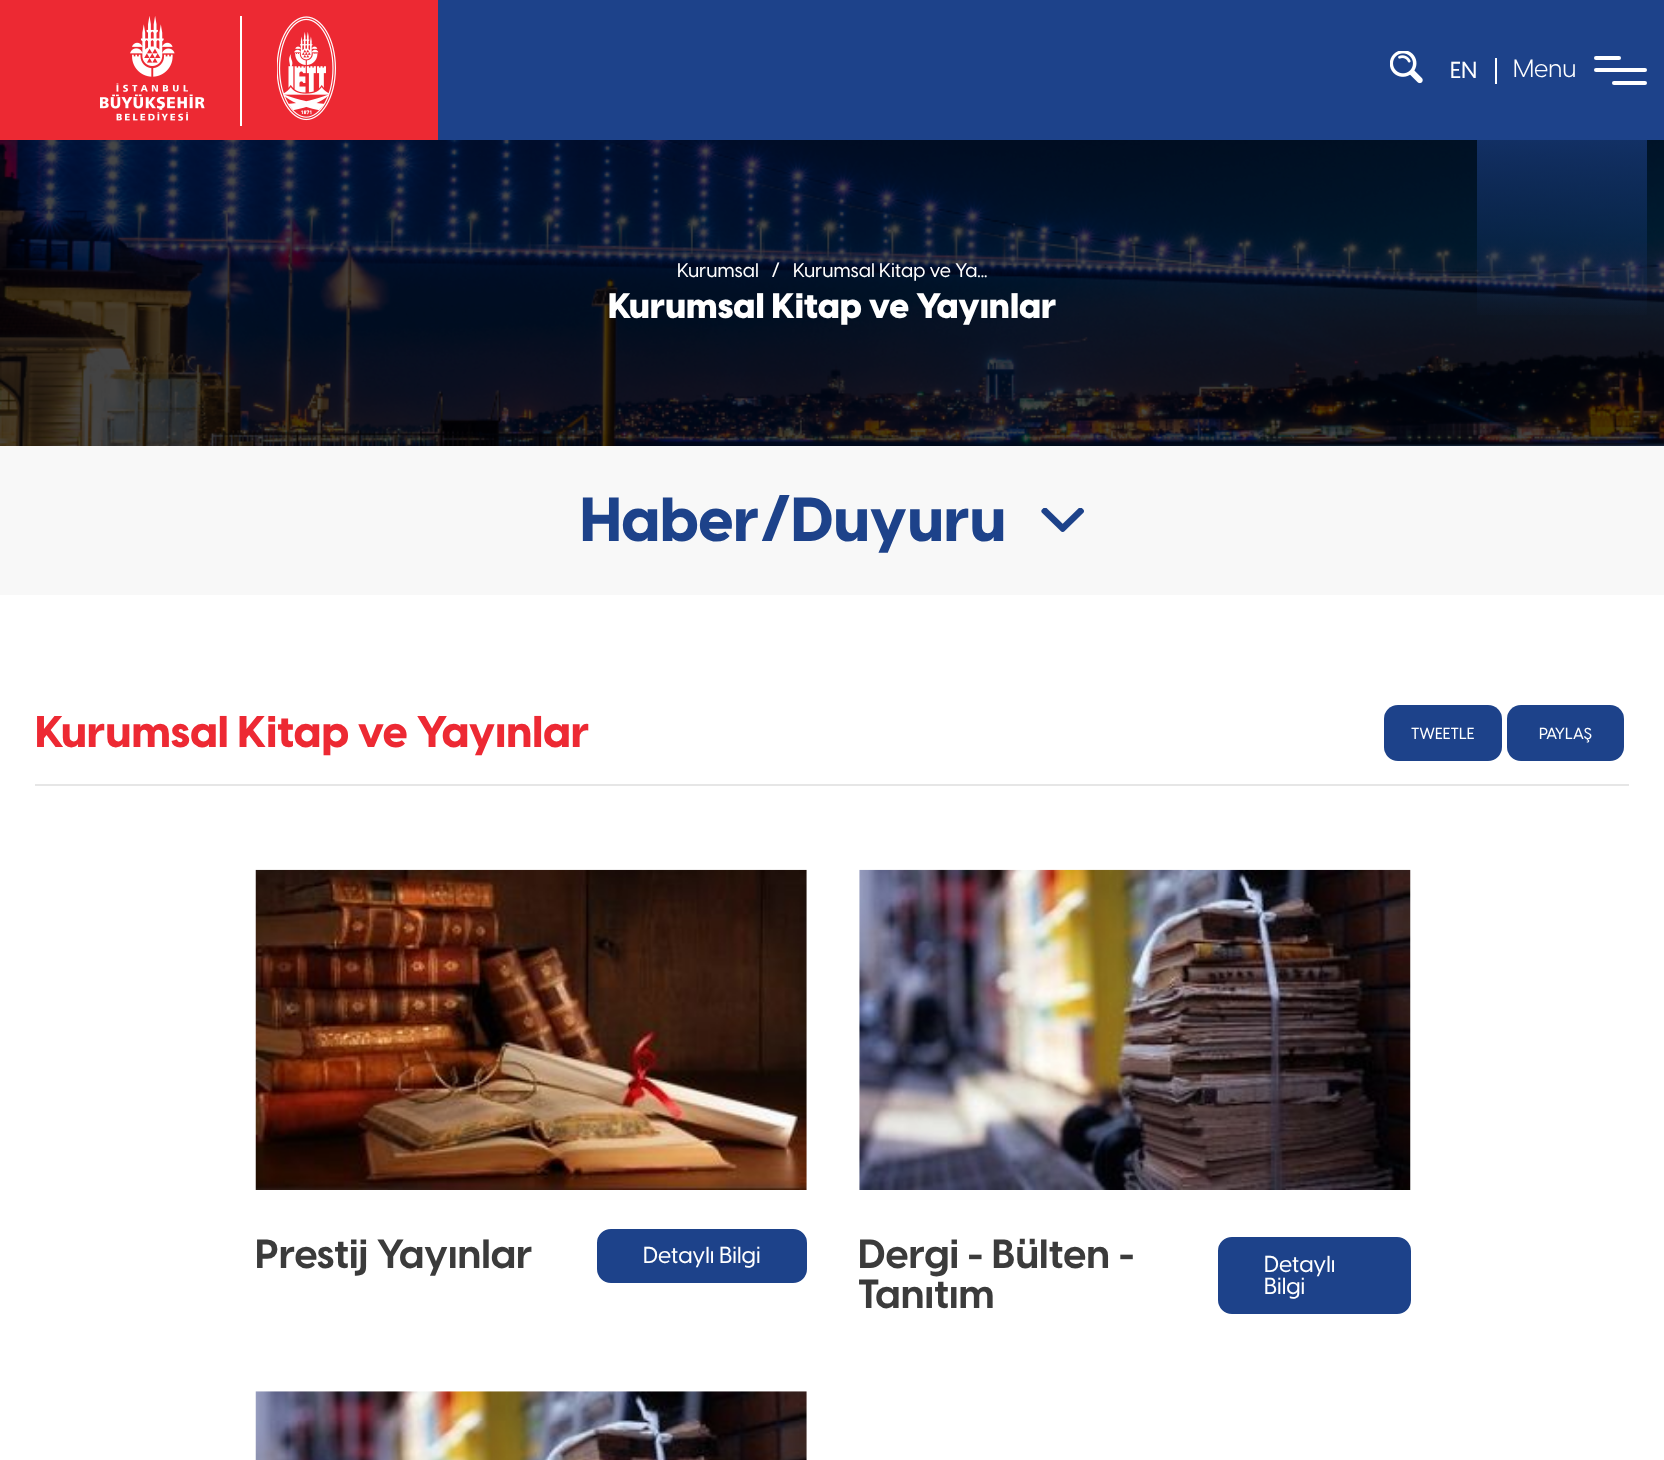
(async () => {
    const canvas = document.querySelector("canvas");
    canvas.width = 1664;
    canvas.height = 1460;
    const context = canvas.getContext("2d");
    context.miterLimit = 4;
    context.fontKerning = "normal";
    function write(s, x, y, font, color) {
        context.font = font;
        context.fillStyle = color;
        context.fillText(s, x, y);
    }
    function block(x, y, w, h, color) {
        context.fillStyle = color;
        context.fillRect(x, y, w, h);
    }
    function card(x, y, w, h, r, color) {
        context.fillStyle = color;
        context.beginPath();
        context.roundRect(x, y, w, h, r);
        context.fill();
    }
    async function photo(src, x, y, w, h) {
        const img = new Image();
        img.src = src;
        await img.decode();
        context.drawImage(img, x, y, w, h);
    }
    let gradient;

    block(0, 0, 1664, 1460, "rgb(255, 255, 255)");
    block(438, 0, 1226, 140, "rgb(29, 66, 138)");
    block(0, 0, 438, 140, "rgb(237, 41, 51)");
    block(240, 16, 2, 110, "rgb(255, 255, 255)");
    await photo("media/1.png", 100, 16, 105, 105);
    await photo("media/2.png", 277, 16, 59, 105);
    await photo("media/3.png", 1390, 51, 33, 33);
    write("EN", 1450, 78, "500 22.75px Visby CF", "rgb(255, 255, 255)");
    block(1495, 58, 2, 26, "rgb(255, 255, 255)");
    write("Menu", 1513, 77, "24.5px Visby CF", "rgb(255, 255, 255)");
    card(1594, 56, 27, 4, 2, "rgb(255, 255, 255)");
    card(1594, 68, 53, 4, 2, "rgb(255, 255, 255)");
    card(1612, 81, 35, 4, 2, "rgb(255, 255, 255)");
    await photo("media/4.png", 0, 140, 1664, 306);
    gradient = context.createLinearGradient(1562, 30, 1562, 322);
    gradient.addColorStop(0, "rgb(29, 66, 138)");
    gradient.addColorStop(1, "rgba(29, 66, 138, 0)");
    context.fillStyle = gradient;
    context.fillRect(1477, 140, 170, 175);
    write("Kurumsal", 677, 277, "500 19.25px Visby CF", "rgb(255, 255, 255)");
    write("/", 771, 277, "500 19.25px Visby CF", "rgb(255, 255, 255)");
    write("Kurumsal Kitap ve Ya...", 793, 277, "500 19.25px Visby CF", "rgb(255, 255, 255)");
    write("Kurumsal Kitap ve Yayınlar", 608, 318, "900 35px Visby CF", "rgb(255, 255, 255)");
    block(0, 446, 1664, 149, "rgb(248, 248, 248)");
    write("Haber/Duyuru", 580, 541, "800 61.25px Visby CF", "rgb(29, 66, 138)");
    await photo("media/5.png", 1041, 508, 43, 24);
    block(35, 784, 1594, 2, "rgb(230, 230, 230)");
    write("Kurumsal Kitap ve Yayınlar", 35, 747, "800 43.75px Visby CF", "rgb(237, 41, 51)");
    card(1384, 705, 118, 56, 14, "rgb(29, 66, 138)");
    write("TWEETLE", 1411, 739, "500 15.75px Visby CF", "rgb(255, 255, 255)");
    card(1507, 705, 117, 56, 14, "rgb(29, 66, 138)");
    write("PAYLAŞ", 1539, 739, "500 15.75px Visby CF", "rgb(255, 255, 255)");
    await photo("media/6.png", 255, 869, 552, 321);
    write("Prestij Yayınlar", 255, 1268, "bold 40.25px Visby CF", "rgb(59, 59, 59)");
    context.fillStyle = "rgb(29, 66, 138)";
    context.beginPath();
    context.roundRect(598, 1230, 208, 52, 13);
    context.fill();
    context.strokeStyle = "rgb(29, 66, 138)";
    context.lineWidth = 2;
    context.stroke();
    write("Detaylı Bilgi", 643, 1263, "500 22.75px Visby CF", "rgb(255, 255, 255)");
    await photo("media/7.png", 859, 869, 552, 321);
    write("Dergi - Bülten -", 858, 1268, "bold 40.25px Visby CF", "rgb(59, 59, 59)");
    write("Tanıtım", 858, 1308, "bold 40.25px Visby CF", "rgb(59, 59, 59)");
    context.fillStyle = "rgb(29, 66, 138)";
    context.beginPath();
    context.roundRect(1219, 1238, 191, 75, 13);
    context.fill();
    context.stroke();
    write("Detaylı", 1264, 1272, "500 22.75px Visby CF", "rgb(255, 255, 255)");
    write("Bilgi", 1264, 1294, "500 22.75px Visby CF", "rgb(255, 255, 255)");
    await photo("media/8.png", 255, 1391, 552, 69);
})();
